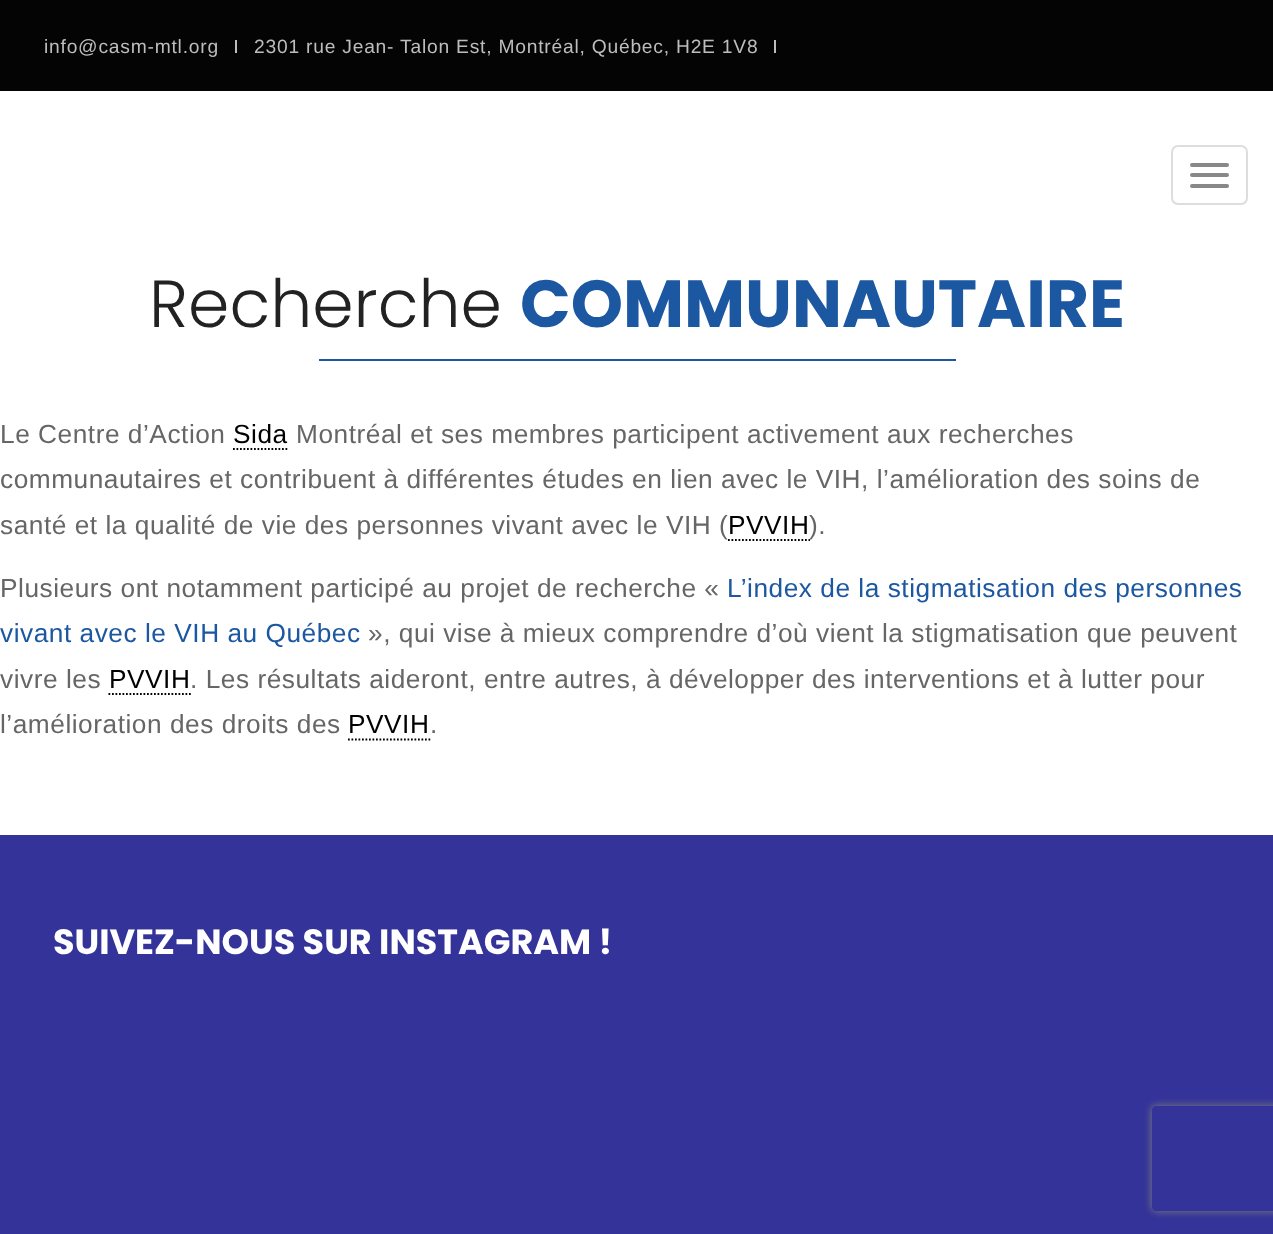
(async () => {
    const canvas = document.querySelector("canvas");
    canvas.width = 1273;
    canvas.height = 1234;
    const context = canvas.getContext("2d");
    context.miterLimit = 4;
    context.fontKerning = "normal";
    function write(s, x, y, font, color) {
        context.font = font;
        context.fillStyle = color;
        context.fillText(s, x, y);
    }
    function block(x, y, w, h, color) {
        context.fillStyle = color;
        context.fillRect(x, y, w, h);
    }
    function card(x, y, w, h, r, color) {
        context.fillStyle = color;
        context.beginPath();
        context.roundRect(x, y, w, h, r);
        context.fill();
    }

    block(0, 0, 1273, 1234, "rgb(255, 255, 255)");
    block(0, 0, 1273, 91, "rgb(4, 4, 4)");
    context.letterSpacing = "0.77px";
    write("info@casm-mtl.org", 44, 53, "19.25px Arimo", "rgb(189, 189, 189)");
    block(235, 40, 2, 13, "rgb(189, 189, 189)");
    write("2301 rue Jean- Talon Est, Montréal, Québec, H2E 1V8", 254, 53, "19.25px Arimo", "rgb(189, 189, 189)");
    block(774, 40, 2, 13, "rgb(189, 189, 189)");
    context.beginPath();
    context.roundRect(1172, 146, 75, 58, 6);
    context.strokeStyle = "rgb(221, 221, 221)";
    context.lineWidth = 2;
    context.stroke();
    card(1190, 163, 39, 4, 2, "rgb(136, 136, 136)");
    card(1190, 173, 39, 4, 2, "rgb(136, 136, 136)");
    card(1190, 184, 39, 4, 2, "rgb(136, 136, 136)");
    context.letterSpacing = "0px";
    write("Recherche", 149, 327, "300 66.5px Poppins", "rgb(34, 34, 34)");
    write("COMMUNAUTAIRE", 520, 327, "bold 66.5px Poppins", "rgb(28, 87, 161)");
    block(319, 359, 637, 2, "rgb(28, 87, 161)");
    context.letterSpacing = "0.53px";
    write("Le Centre d’Action", 0, 443, "26.25px Arimo", "rgb(102, 102, 102)");
    write("Sida", 233, 443, "26.25px Arimo", "rgb(0, 0, 0)");
    context.beginPath();
    context.moveTo(233, 449);
    context.lineTo(289, 449);
    context.strokeStyle = "rgb(0, 0, 0)";
    context.lineWidth = 1.8;
    context.setLineDash([1.75, 1.75]);
    context.stroke();
    write("Montréal et ses membres participent activement aux recherches", 296, 443, "26.25px Arimo", "rgb(102, 102, 102)");
    write("communautaires et contribuent à différentes études en lien avec le VIH, l’amélioration des soins de", 0, 488, "26.25px Arimo", "rgb(102, 102, 102)");
    write("santé et la qualité de vie des personnes vivant avec le VIH (", 0, 534, "26.25px Arimo", "rgb(102, 102, 102)");
    write("PVVIH", 728, 534, "26.25px Arimo", "rgb(0, 0, 0)");
    context.beginPath();
    context.moveTo(728, 540);
    context.lineTo(810, 540);
    context.stroke();
    write(").", 809, 534, "26.25px Arimo", "rgb(102, 102, 102)");
    write("Plusieurs ont notamment participé au projet de recherche «", 0, 597, "26.25px Arimo", "rgb(102, 102, 102)");
    write("L’index de la stigmatisation des personnes", 727, 597, "26.25px Arimo", "rgb(28, 87, 161)");
    write("vivant avec le VIH au Québec", 0, 642, "26.25px Arimo", "rgb(28, 87, 161)");
    write("», qui vise à mieux comprendre d’où vient la stigmatisation que peuvent", 368, 642, "26.25px Arimo", "rgb(102, 102, 102)");
    write("vivre les", 0, 688, "26.25px Arimo", "rgb(102, 102, 102)");
    write("PVVIH", 109, 688, "26.25px Arimo", "rgb(0, 0, 0)");
    context.beginPath();
    context.moveTo(108.5, 694);
    context.lineTo(191, 694);
    context.stroke();
    write(". Les résultats aideront, entre autres, à développer des interventions et à lutter pour", 190, 688, "26.25px Arimo", "rgb(102, 102, 102)");
    write("l’amélioration des droits des", 0, 733, "26.25px Arimo", "rgb(102, 102, 102)");
    write("PVVIH", 348, 733, "26.25px Arimo", "rgb(0, 0, 0)");
    context.beginPath();
    context.moveTo(348, 739.5);
    context.lineTo(430.5, 739.5);
    context.stroke();
    write(".", 430, 733, "26.25px Arimo", "rgb(102, 102, 102)");
    block(0, 835, 1273, 399, "rgb(51, 51, 153)");
    context.letterSpacing = "0px";
    write("SUIVEZ-NOUS SUR INSTAGRAM !", 53, 954, "bold 35px Poppins", "rgb(255, 255, 255)");
    context.save();
    context.beginPath();
    context.moveTo(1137, 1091);
    context.lineTo(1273, 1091);
    context.lineTo(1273, 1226);
    context.lineTo(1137, 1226);
    context.closePath();
    context.moveTo(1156, 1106);
    context.lineTo(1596, 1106);
    context.bezierCurveTo(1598, 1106, 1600, 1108, 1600, 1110);
    context.lineTo(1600, 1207);
    context.bezierCurveTo(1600, 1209, 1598, 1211, 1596, 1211);
    context.lineTo(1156, 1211);
    context.bezierCurveTo(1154, 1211, 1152, 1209, 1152, 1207);
    context.lineTo(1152, 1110);
    context.bezierCurveTo(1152, 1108, 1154, 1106, 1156, 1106);
    context.closePath();
    context.clip("evenodd");
    context.fillStyle = "rgb(128, 128, 128)";
    context.filter = "blur(4.5px)";
    context.beginPath();
    context.roundRect(1152, 1106, 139, 105, 4);
    context.fill();
    context.filter = "none";
    context.restore();
})();
